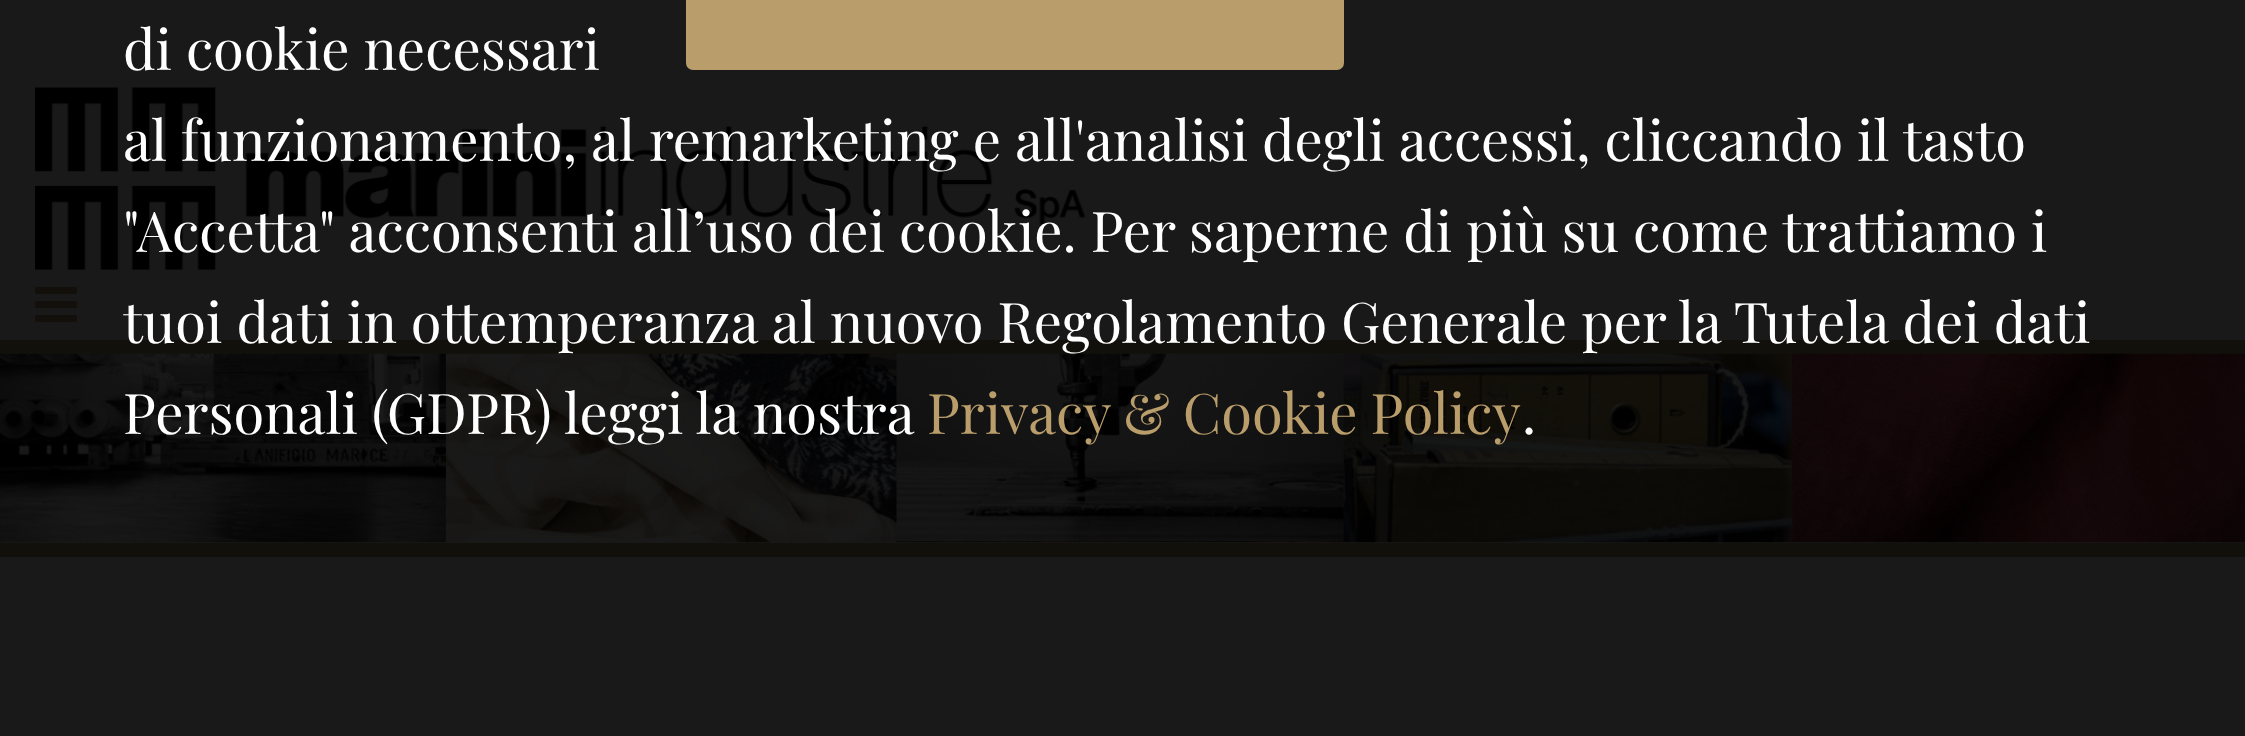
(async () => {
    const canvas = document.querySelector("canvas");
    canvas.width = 2245;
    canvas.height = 736;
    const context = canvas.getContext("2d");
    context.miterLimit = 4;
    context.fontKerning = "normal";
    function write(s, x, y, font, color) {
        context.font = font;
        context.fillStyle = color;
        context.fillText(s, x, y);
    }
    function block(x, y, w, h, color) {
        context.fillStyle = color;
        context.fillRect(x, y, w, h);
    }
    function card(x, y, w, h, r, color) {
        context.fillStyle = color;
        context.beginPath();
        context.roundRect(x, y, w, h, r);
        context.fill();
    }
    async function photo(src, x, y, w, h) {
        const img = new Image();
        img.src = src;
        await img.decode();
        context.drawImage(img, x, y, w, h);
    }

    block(0, 0, 2245, 736, "rgb(25, 25, 25)");
    card(686, -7, 658, 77, 7, "rgb(185, 157, 107)");
    write("di cookie necessari", 123, 70, "56px Playfair Display", "rgb(255, 255, 255)");
    await photo("media/1.png", 35, 87, 1050, 183);
    write("al funzionamento, al remarketing e all'analisi degli accessi, cliccando il tasto", 123, 161, "56px Playfair Display", "rgb(255, 255, 255)");
    write("\"Accetta\" acconsenti all’uso dei cookie. Per saperne di più su come trattiamo i", 123, 252, "56px Playfair Display", "rgb(255, 255, 255)");
    block(0, 340, 2245, 14, "rgb(18, 16, 11)");
    await photo("media/3.png", 0, 353, 2245, 190);
    write("tuoi dati in ottemperanza al nuovo Regolamento Generale per la Tutela dei dati", 123, 343, "56px Playfair Display", "rgb(255, 255, 255)");
    write("Personali (GDPR) leggi la nostra", 123, 434, "56px Playfair Display", "rgb(255, 255, 255)");
    context.wordSpacing = "-1px";
    write("Privacy & Cookie Policy", 927, 434, "56px Playfair Display", "rgb(185, 157, 107)");
    context.wordSpacing = "0px";
    write(".", 1522, 434, "56px Playfair Display", "rgb(255, 255, 255)");
    await photo("media/2.png", 35, 287, 42, 35);
    block(0, 543, 2245, 14, "rgb(18, 16, 11)");
})();
